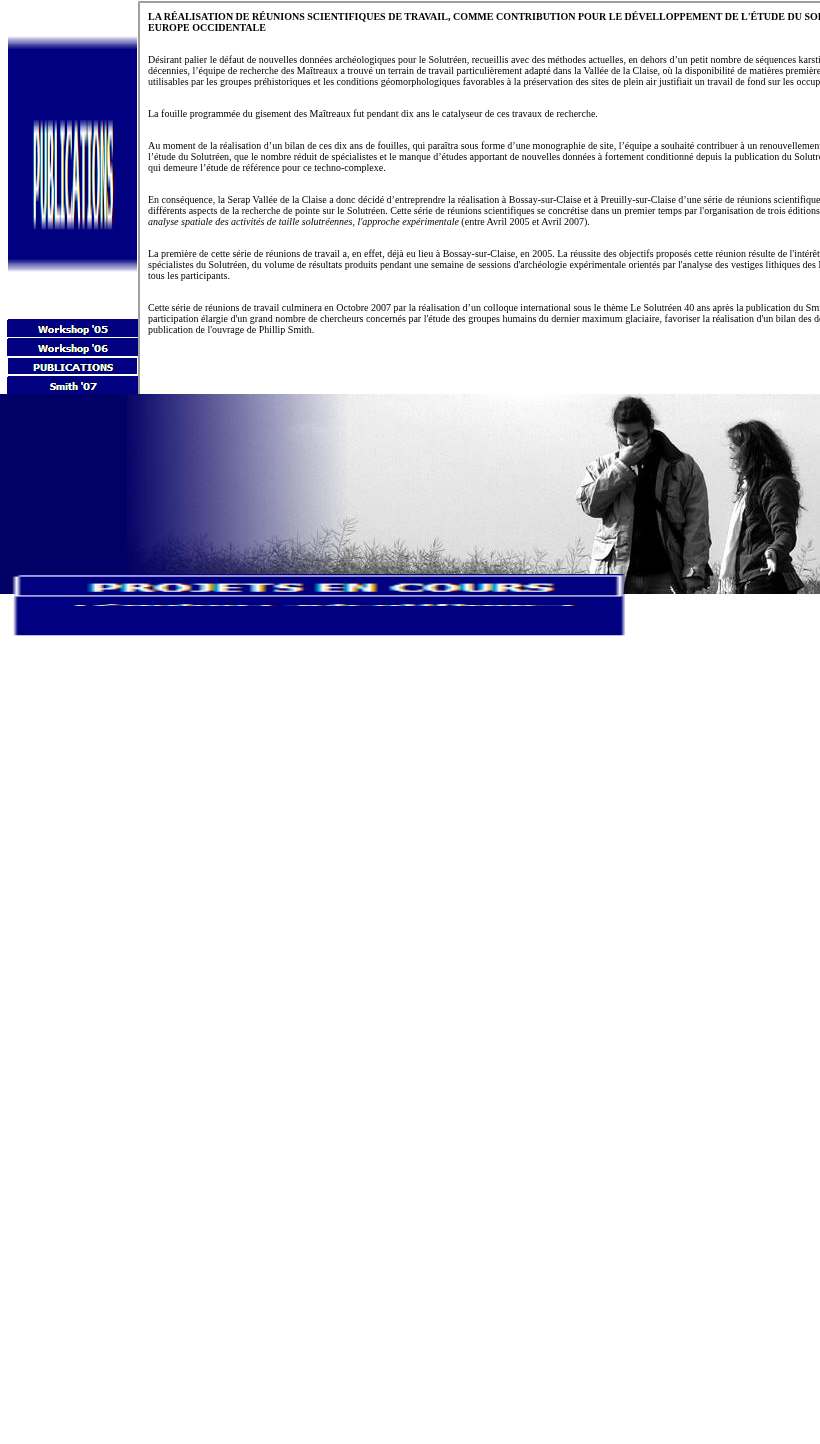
(async () => {
    const canvas = document.querySelector("canvas");
    canvas.width = 820;
    canvas.height = 1444;
    const context = canvas.getContext("2d");
    context.miterLimit = 4;
    context.fontKerning = "normal";
    function block(x, y, w, h, color) {
        context.fillStyle = color;
        context.fillRect(x, y, w, h);
    }
    async function photo(src, x, y, w, h) {
        const img = new Image();
        img.src = src;
        await img.decode();
        context.drawImage(img, x, y, w, h);
    }

    block(0, 0, 820, 1444, "rgb(255, 255, 255)");
    await photo("media/1.png", 8, 36, 129, 236);
    context.fillStyle = "rgb(159, 159, 159)";
    context.beginPath();
    context.moveTo(138, 1);
    context.lineTo(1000, 1);
    context.lineTo(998, 3);
    context.lineTo(140, 3);
    context.closePath();
    context.fill();
    context.beginPath();
    context.moveTo(138, 398);
    context.lineTo(138, 1);
    context.lineTo(140, 3);
    context.lineTo(140, 396);
    context.closePath();
    context.fill();
    await photo("media/2.png", 148, 11, 672, 324);
    await photo("media/3.png", 7, 319, 131, 18);
    await photo("media/4.png", 7, 338, 131, 18);
    await photo("media/5.png", 7, 376, 131, 18);
    await photo("media/9.png", 0, 394, 820, 200);
    await photo("media/6.png", 13, 574, 612, 62);
    await photo("media/7.png", 12, 575, 612, 22);
    await photo("media/8.png", 8, 358, 129, 16);
})();
